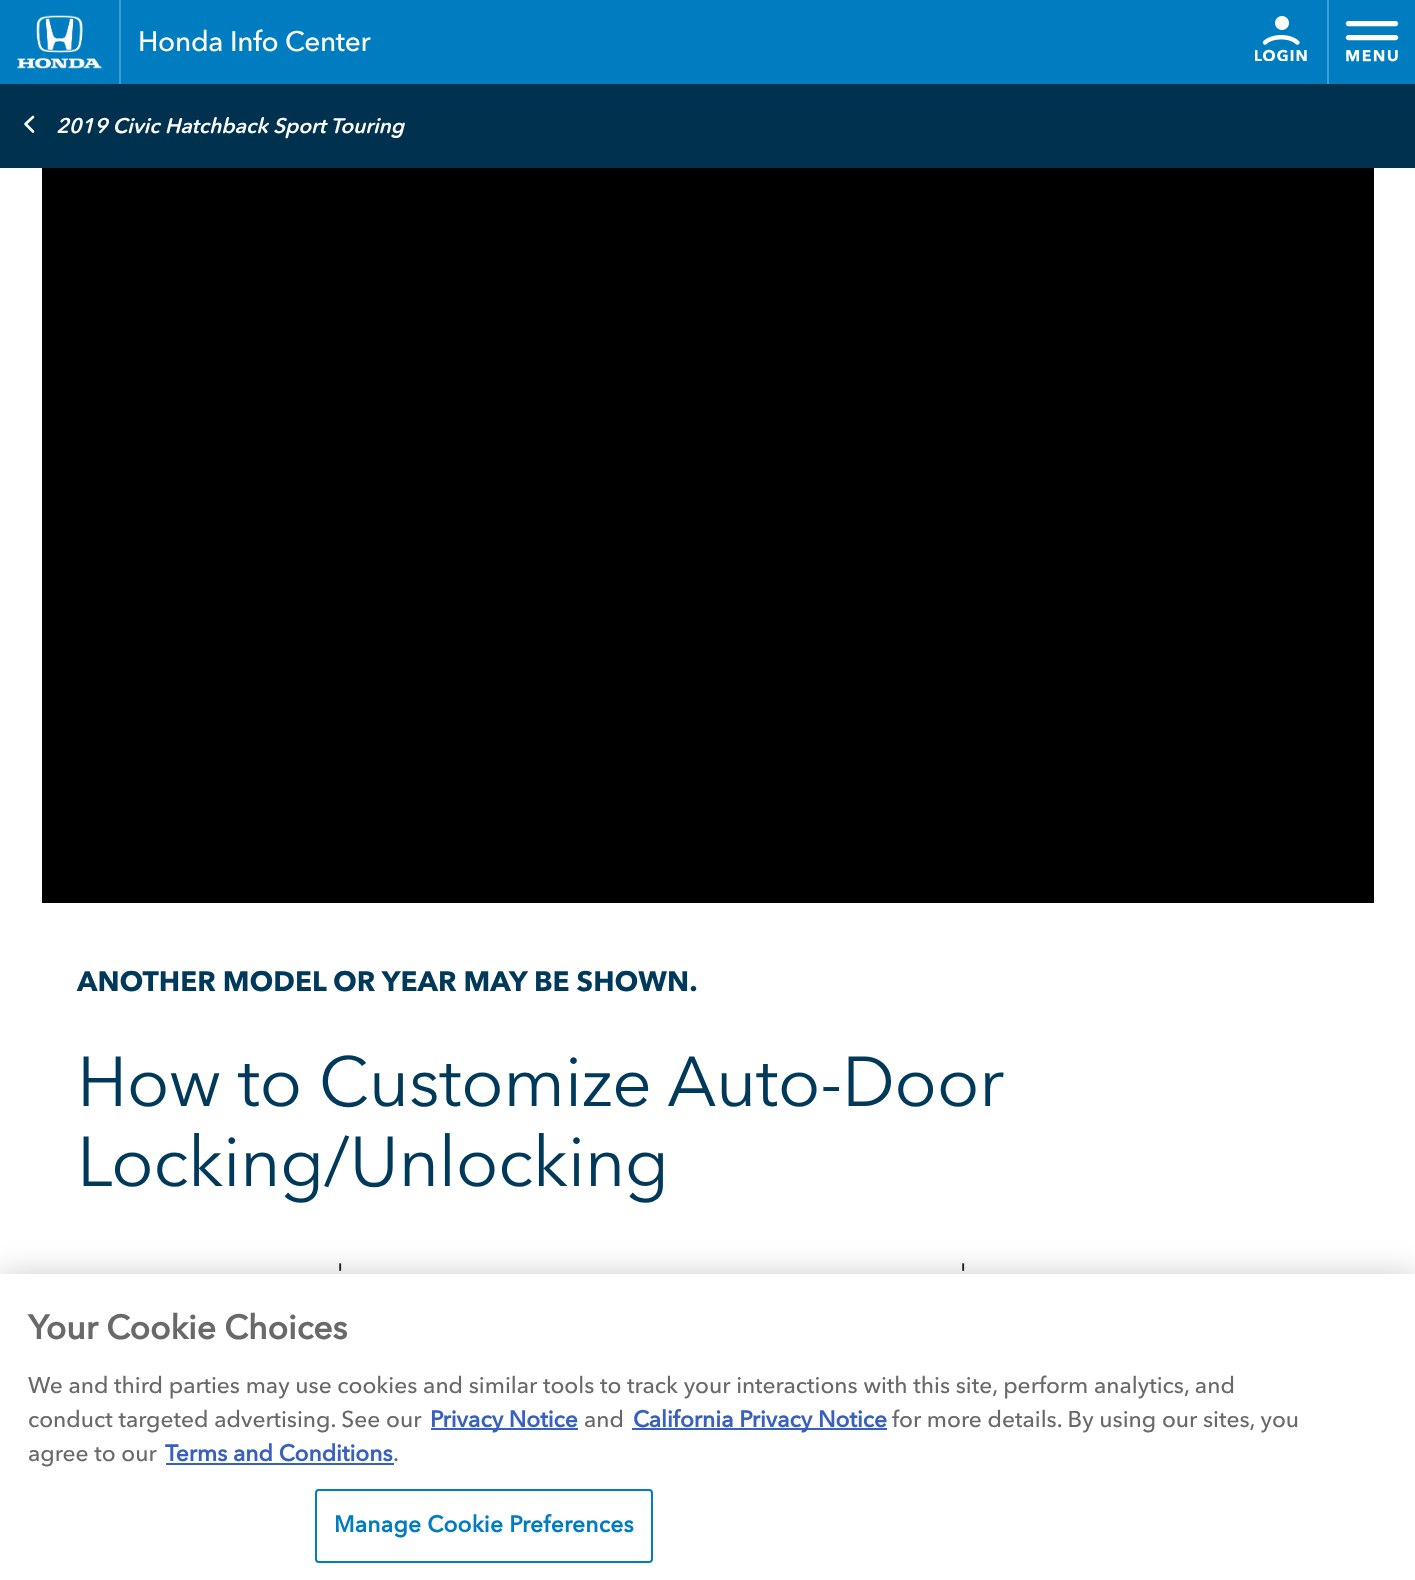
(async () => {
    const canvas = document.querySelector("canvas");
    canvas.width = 1415;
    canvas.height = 1580;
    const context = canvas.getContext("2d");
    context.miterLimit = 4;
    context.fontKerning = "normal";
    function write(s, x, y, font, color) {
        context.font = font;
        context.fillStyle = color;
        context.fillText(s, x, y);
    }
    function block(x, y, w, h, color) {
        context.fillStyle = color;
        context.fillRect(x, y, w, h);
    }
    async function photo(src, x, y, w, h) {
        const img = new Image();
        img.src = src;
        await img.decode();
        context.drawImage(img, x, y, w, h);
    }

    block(0, 0, 1415, 1580, "rgb(0, 124, 192)");
    block(119, 0, 2, 84, "rgb(63, 157, 209)");
    await photo("media/1.png", 17, 15, 85, 54);
    context.letterSpacing = "-0.3px";
    write("Honda Info Center", 138, 51, "500 28px Avenir Next", "rgb(255, 255, 255)");
    await photo("media/2.png", 1255, 16, 52, 45);
    block(1327, 0, 2, 84, "rgb(63, 157, 209)");
    await photo("media/3.png", 1345, 21, 54, 41);
    block(0, 168, 1415, 1106, "rgb(255, 255, 255)");
    block(0, 84, 1415, 84, "rgb(0, 50, 79)");
    context.beginPath();
    context.moveTo(33, 131.5);
    context.lineTo(25.5, 124);
    context.lineTo(33, 117);
    context.strokeStyle = "rgb(255, 255, 255)";
    context.lineWidth = 2.6;
    context.lineCap = "round";
    context.lineJoin = "round";
    context.stroke();
    context.letterSpacing = "0px";
    write("2019 Civic Hatchback Sport Touring", 56, 133, "italic 600 21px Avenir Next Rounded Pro", "rgb(255, 255, 255)");
    block(42, 168, 1332, 735, "rgb(0, 0, 0)");
    write("ANOTHER MODEL OR YEAR MAY BE SHOWN.", 77, 991, "bold 28px Avenir Next", "rgb(0, 57, 89)");
    context.letterSpacing = "-0.5px";
    write("How to Customize Auto-Door", 77, 1106, "70px Avenir Next", "rgb(0, 57, 89)");
    write("Locking/Unlocking", 77, 1186, "70px Avenir Next", "rgb(0, 57, 89)");
    context.letterSpacing = "0px";
    write("'", 336, 1286, "32px Avenir Next", "rgb(38, 38, 38)");
    write("'", 959, 1286, "32px Avenir Next", "rgb(38, 38, 38)");
    context.fillStyle = "rgba(0, 0, 0, 0.2)";
    context.filter = "blur(16px)";
    context.beginPath();
    context.rect(0, 1274, 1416, 306);
    context.fill();
    context.filter = "none";
    block(0, 1274, 1415, 306, "rgb(255, 255, 255)");
    write("Your Cookie Choices", 28, 1339, "bold 33.5px 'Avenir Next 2'", "rgb(105, 105, 105)");
    write("We and third parties may use cookies and similar tools to track your interactions with this site, perform analytics, and", 28, 1393, "500 22.75px Avenir Next", "rgb(105, 105, 105)");
    write("conduct targeted advertising. See our", 28, 1427, "500 22.75px Avenir Next", "rgb(105, 105, 105)");
    block(431, 1428, 147, 2, "rgb(56, 96, 190)");
    write("Privacy Notice", 430, 1427, "bold 22.75px 'Avenir Next 2'", "rgb(56, 96, 190)");
    write("and", 584, 1427, "500 22.75px Avenir Next", "rgb(105, 105, 105)");
    block(632, 1428, 255, 2, "rgb(56, 96, 190)");
    write("California Privacy Notice", 633, 1427, "bold 22.75px 'Avenir Next 2'", "rgb(56, 96, 190)");
    write("for more details. By using our sites, you", 892, 1427, "500 22.75px Avenir Next", "rgb(105, 105, 105)");
    write("agree to our", 28, 1461, "500 22.75px Avenir Next", "rgb(105, 105, 105)");
    write("Terms and Conditions", 165, 1461, "bold 22.75px 'Avenir Next 2'", "rgb(56, 96, 190)");
    block(166, 1463, 228, 2, "rgb(56, 96, 190)");
    write(".", 393, 1461, "500 22.75px Avenir Next", "rgb(105, 105, 105)");
    context.beginPath();
    context.roundRect(316, 1490, 336, 72, 3);
    context.strokeStyle = "rgb(0, 124, 192)";
    context.lineWidth = 2;
    context.lineJoin = "miter";
    context.stroke();
    context.letterSpacing = "0.25px";
    write("Manage Cookie Preferences", 334, 1532, "bold 22.75px 'Avenir Next 2'", "rgb(0, 124, 192)");
})();
